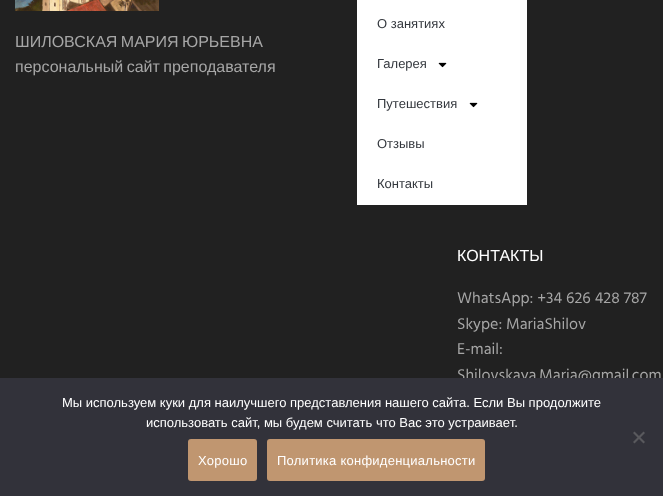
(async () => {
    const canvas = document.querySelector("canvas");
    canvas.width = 663;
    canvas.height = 496;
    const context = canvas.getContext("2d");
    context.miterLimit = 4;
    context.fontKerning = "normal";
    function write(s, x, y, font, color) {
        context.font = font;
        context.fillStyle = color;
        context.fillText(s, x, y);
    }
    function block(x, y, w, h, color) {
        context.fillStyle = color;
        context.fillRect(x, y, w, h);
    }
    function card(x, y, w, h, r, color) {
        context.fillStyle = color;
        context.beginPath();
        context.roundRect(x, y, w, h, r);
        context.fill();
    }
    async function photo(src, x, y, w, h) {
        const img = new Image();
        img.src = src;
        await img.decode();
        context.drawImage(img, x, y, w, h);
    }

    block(0, 0, 663, 496, "rgb(33, 33, 33)");
    await photo("media/1.png", 15, 0, 144, 11);
    context.wordSpacing = "-1px";
    write("ШИЛОВСКАЯ МАРИЯ ЮРЬЕВНА", 15, 47, "16px Liberation Sans", "rgb(166, 166, 166)");
    write("персональный сайт преподавателя", 15, 72, "16px Liberation Sans", "rgb(166, 166, 166)");
    block(357, 0, 170, 205, "rgb(255, 255, 255)");
    context.wordSpacing = "0px";
    write("О занятиях", 377, 28, "13px Liberation Sans", "rgb(51, 55, 61)");
    write("Галерея", 377, 68, "13px Liberation Sans", "rgb(51, 55, 61)");
    await photo("media/2.png", 438, 62, 9, 6);
    write("Путешествия", 377, 108, "13px Liberation Sans", "rgb(51, 55, 61)");
    await photo("media/2.png", 469, 102, 9, 6);
    write("Отзывы", 377, 148, "13px Liberation Sans", "rgb(51, 55, 61)");
    write("Контакты", 377, 188, "13px Liberation Sans", "rgb(51, 55, 61)");
    write("КОНТАКТЫ", 457, 261, "16px Liberation Sans", "rgb(255, 255, 255)");
    write("WhatsApp: +34 626 428 787", 457, 303, "16px Hind", "rgb(166, 166, 166)");
    write("Skype: MariaShilov", 457, 329, "16px Hind", "rgb(166, 166, 166)");
    write("E-mail:", 457, 354, "16px Hind", "rgb(166, 166, 166)");
    write("Shilovskaya.Maria@gmail.com", 457, 380, "16px Hind", "rgb(166, 166, 166)");
    block(0, 378, 663, 118, "rgb(50, 50, 58)");
    write("Мы используем куки для наилучшего представления нашего сайта. Если Вы продолжите", 62, 407, "13px Liberation Sans", "rgb(255, 255, 255)");
    write("использовать сайт, мы будем считать что Вас это устраивает.", 146, 427, "13px Liberation Sans", "rgb(255, 255, 255)");
    context.fillStyle = "rgb(89, 89, 93)";
    context.beginPath();
    context.moveTo(643.5, 431.5);
    context.lineTo(645, 433);
    context.lineTo(634.5, 443.5);
    context.lineTo(633, 442);
    context.closePath();
    context.fill();
    context.beginPath();
    context.moveTo(633, 433);
    context.lineTo(634.5, 431.5);
    context.lineTo(645, 442);
    context.lineTo(643.5, 443.5);
    context.closePath();
    context.fill();
    card(188, 439, 69, 42, 3, "rgb(192, 150, 112)");
    context.letterSpacing = "0.25px";
    write("Хорошо", 198, 465, "13px Liberation Sans", "rgb(255, 255, 255)");
    card(267, 439, 218, 42, 3, "rgb(192, 150, 112)");
    write("Политика конфиденциальности", 277, 465, "13px Liberation Sans", "rgb(255, 255, 255)");
})();
